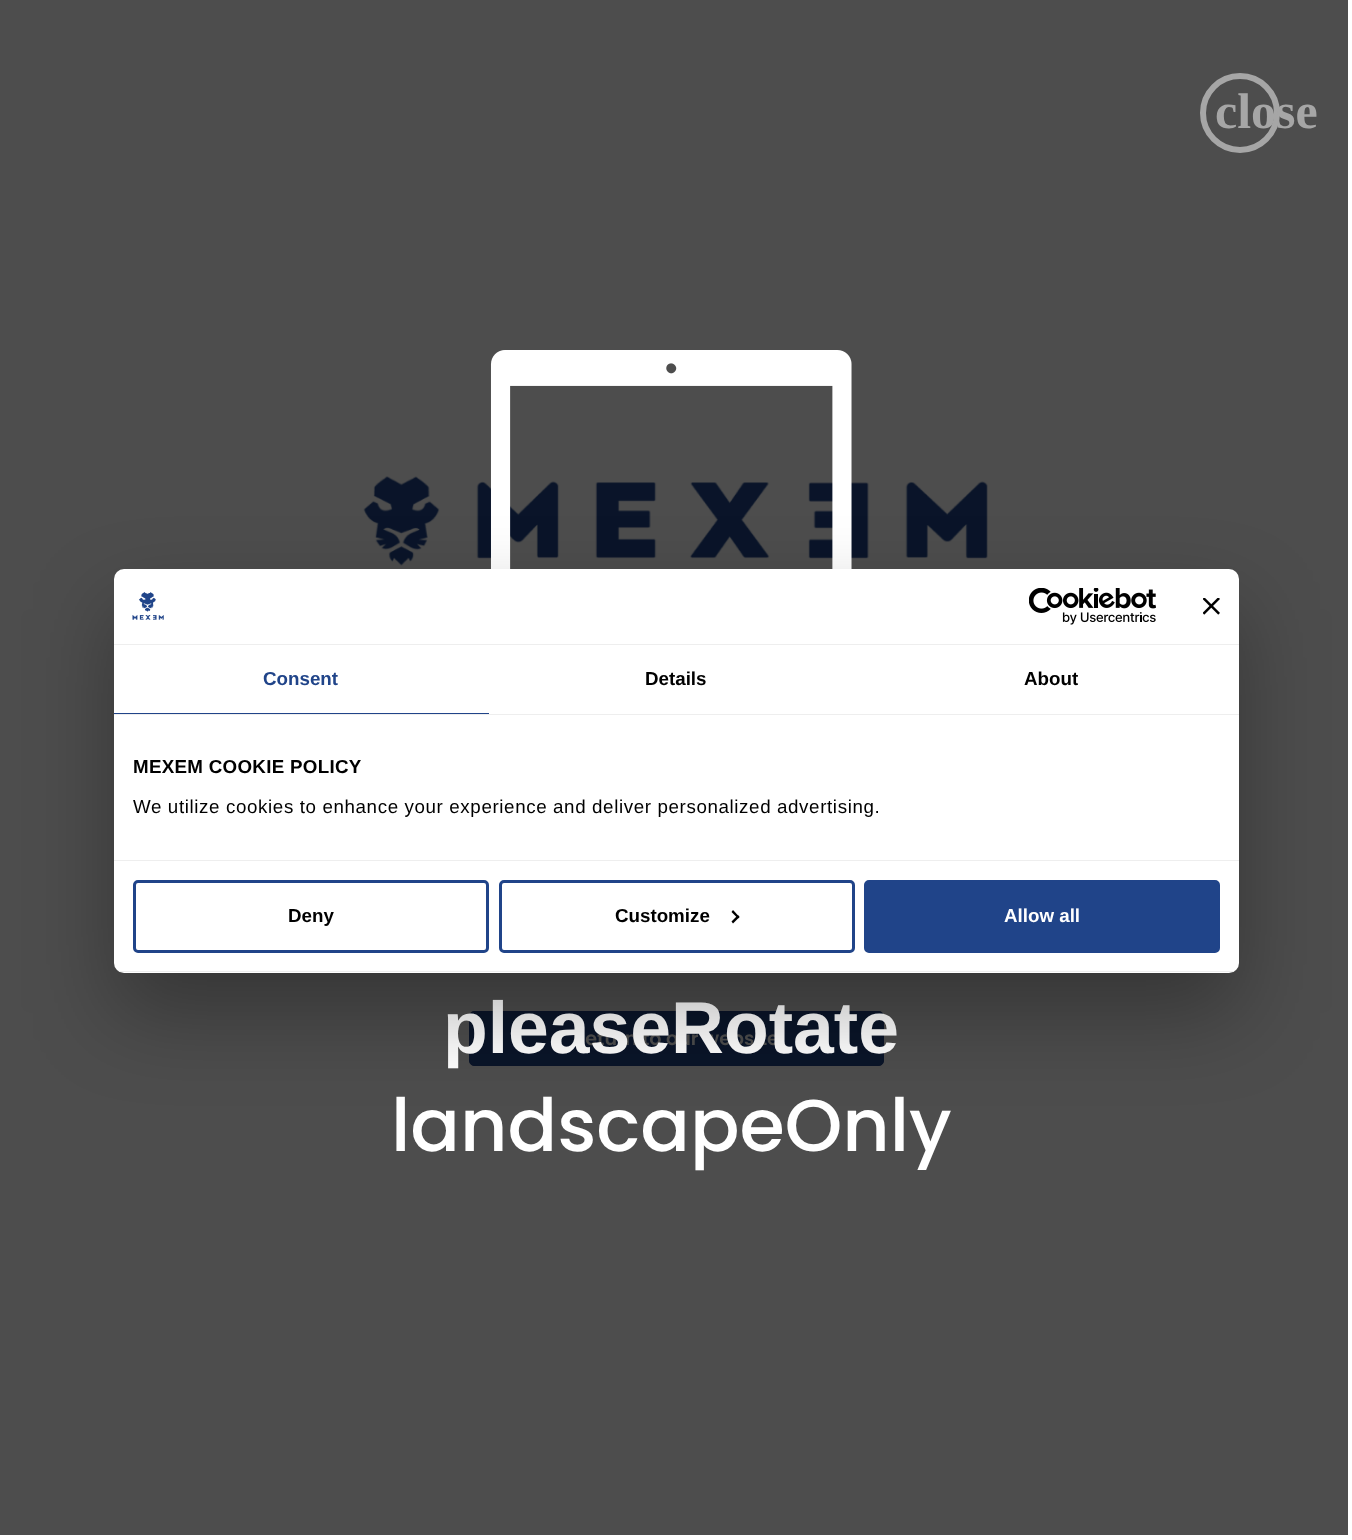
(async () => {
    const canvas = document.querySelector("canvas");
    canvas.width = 1352;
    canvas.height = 1540;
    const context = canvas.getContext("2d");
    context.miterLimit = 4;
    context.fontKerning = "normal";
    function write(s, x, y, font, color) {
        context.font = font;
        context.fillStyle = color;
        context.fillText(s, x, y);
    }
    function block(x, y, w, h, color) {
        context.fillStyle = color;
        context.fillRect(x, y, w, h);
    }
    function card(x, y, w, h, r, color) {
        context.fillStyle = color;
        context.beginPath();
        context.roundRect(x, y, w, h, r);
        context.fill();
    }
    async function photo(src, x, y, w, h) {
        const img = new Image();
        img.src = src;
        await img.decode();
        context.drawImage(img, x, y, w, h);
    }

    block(0, 0, 1352, 1540, "rgb(255, 255, 255)");
    block(0, 0, 1348, 1535, "rgb(77, 77, 77)");
    context.beginPath();
    context.arc(1240, 113, 37, 0, Math.PI * 2);
    context.strokeStyle = "rgb(166, 166, 166)";
    context.lineWidth = 6;
    context.stroke();
    write("close", 1215, 128, "bold 50px Liberation Serif", "rgb(166, 166, 166)");
    await photo("media/2.png", 363, 476, 625, 90);
    await photo("media/1.png", 490, 350, 362, 219);
    context.fillStyle = "rgb(10, 21, 41)";
    context.beginPath();
    context.roundRect(469.5, 1011.5, 414, 54, 4.5);
    context.fill();
    context.strokeStyle = "rgb(10, 20, 41)";
    context.lineWidth = 1;
    context.stroke();
    write("Return to our website", 573, 1045, "600 19.1px Poppins", "rgb(77, 77, 77)");
    write("pleaseRotate", 443, 1053, "bold 73.25px Liberation Sans", "rgb(255, 255, 255)");
    write("landscapeOnly", 391, 1151, "500 73.25px Poppins", "rgb(255, 255, 255)");
    context.fillStyle = "rgba(0, 0, 0, 0.3)";
    context.filter = "blur(42.5px)";
    context.beginPath();
    context.roundRect(114, 609, 1125, 404, 10);
    context.fill();
    context.filter = "none";
    card(114, 569, 1125, 404, 10, "rgb(255, 255, 255)");
    block(114, 644, 1125, 1, "rgb(238, 238, 238)");
    await photo("media/3.png", 132, 592, 32, 28);
    await photo("media/4.png", 1029, 588, 127, 37);
    await photo("media/5.png", 1203, 598, 17, 17);
    block(114, 714, 1125, 1, "rgb(238, 238, 238)");
    block(114, 713, 375, 1, "rgb(32, 68, 137)");
    write("Consent", 263, 685, "bold 18.75px Liberation Sans", "rgb(32, 68, 137)");
    write("Details", 645, 685, "bold 18.75px Liberation Sans", "rgb(0, 0, 0)");
    write("About", 1024, 685, "bold 18.75px Liberation Sans", "rgb(0, 0, 0)");
    block(114, 860, 1125, 1, "rgb(238, 238, 238)");
    context.letterSpacing = "0.3px";
    write("MEXEM COOKIE POLICY", 133, 773, "bold 18.75px Liberation Sans", "rgb(0, 0, 0)");
    context.letterSpacing = "0.62px";
    write("We utilize cookies to enhance your experience and deliver personalized advertising.", 133, 813, "18.75px Liberation Sans", "rgb(0, 0, 0)");
    context.save();
    context.beginPath();
    context.roundRect(114, 569, 1125, 404, 10);
    context.clip();
    block(114, 971, 1125, 1, "rgb(238, 238, 238)");
    context.restore();
    context.beginPath();
    context.roundRect(134.5, 881.5, 353, 70, 3.5);
    context.strokeStyle = "rgb(32, 68, 137)";
    context.lineWidth = 3;
    context.stroke();
    context.letterSpacing = "0px";
    write("Deny", 288, 922, "bold 18.75px Liberation Sans", "rgb(0, 0, 0)");
    context.beginPath();
    context.roundRect(500.5, 881.5, 353, 70, 3.5);
    context.stroke();
    write("Customize", 615, 922, "bold 18.75px Liberation Sans", "rgb(0, 0, 0)");
    context.beginPath();
    context.moveTo(733, 910);
    context.lineTo(739.5, 917);
    context.lineTo(738, 918.5);
    context.lineTo(731.5, 912);
    context.closePath();
    context.fill();
    context.beginPath();
    context.moveTo(738, 915);
    context.lineTo(739.5, 917);
    context.lineTo(733, 923.5);
    context.lineTo(731.5, 921.5);
    context.closePath();
    context.fill();
    context.fillStyle = "rgb(32, 68, 137)";
    context.beginPath();
    context.roundRect(865.5, 881.5, 353, 70, 3.5);
    context.fill();
    context.stroke();
    write("Allow all", 1004, 922, "bold 18.75px Liberation Sans", "rgb(255, 255, 255)");
})();
